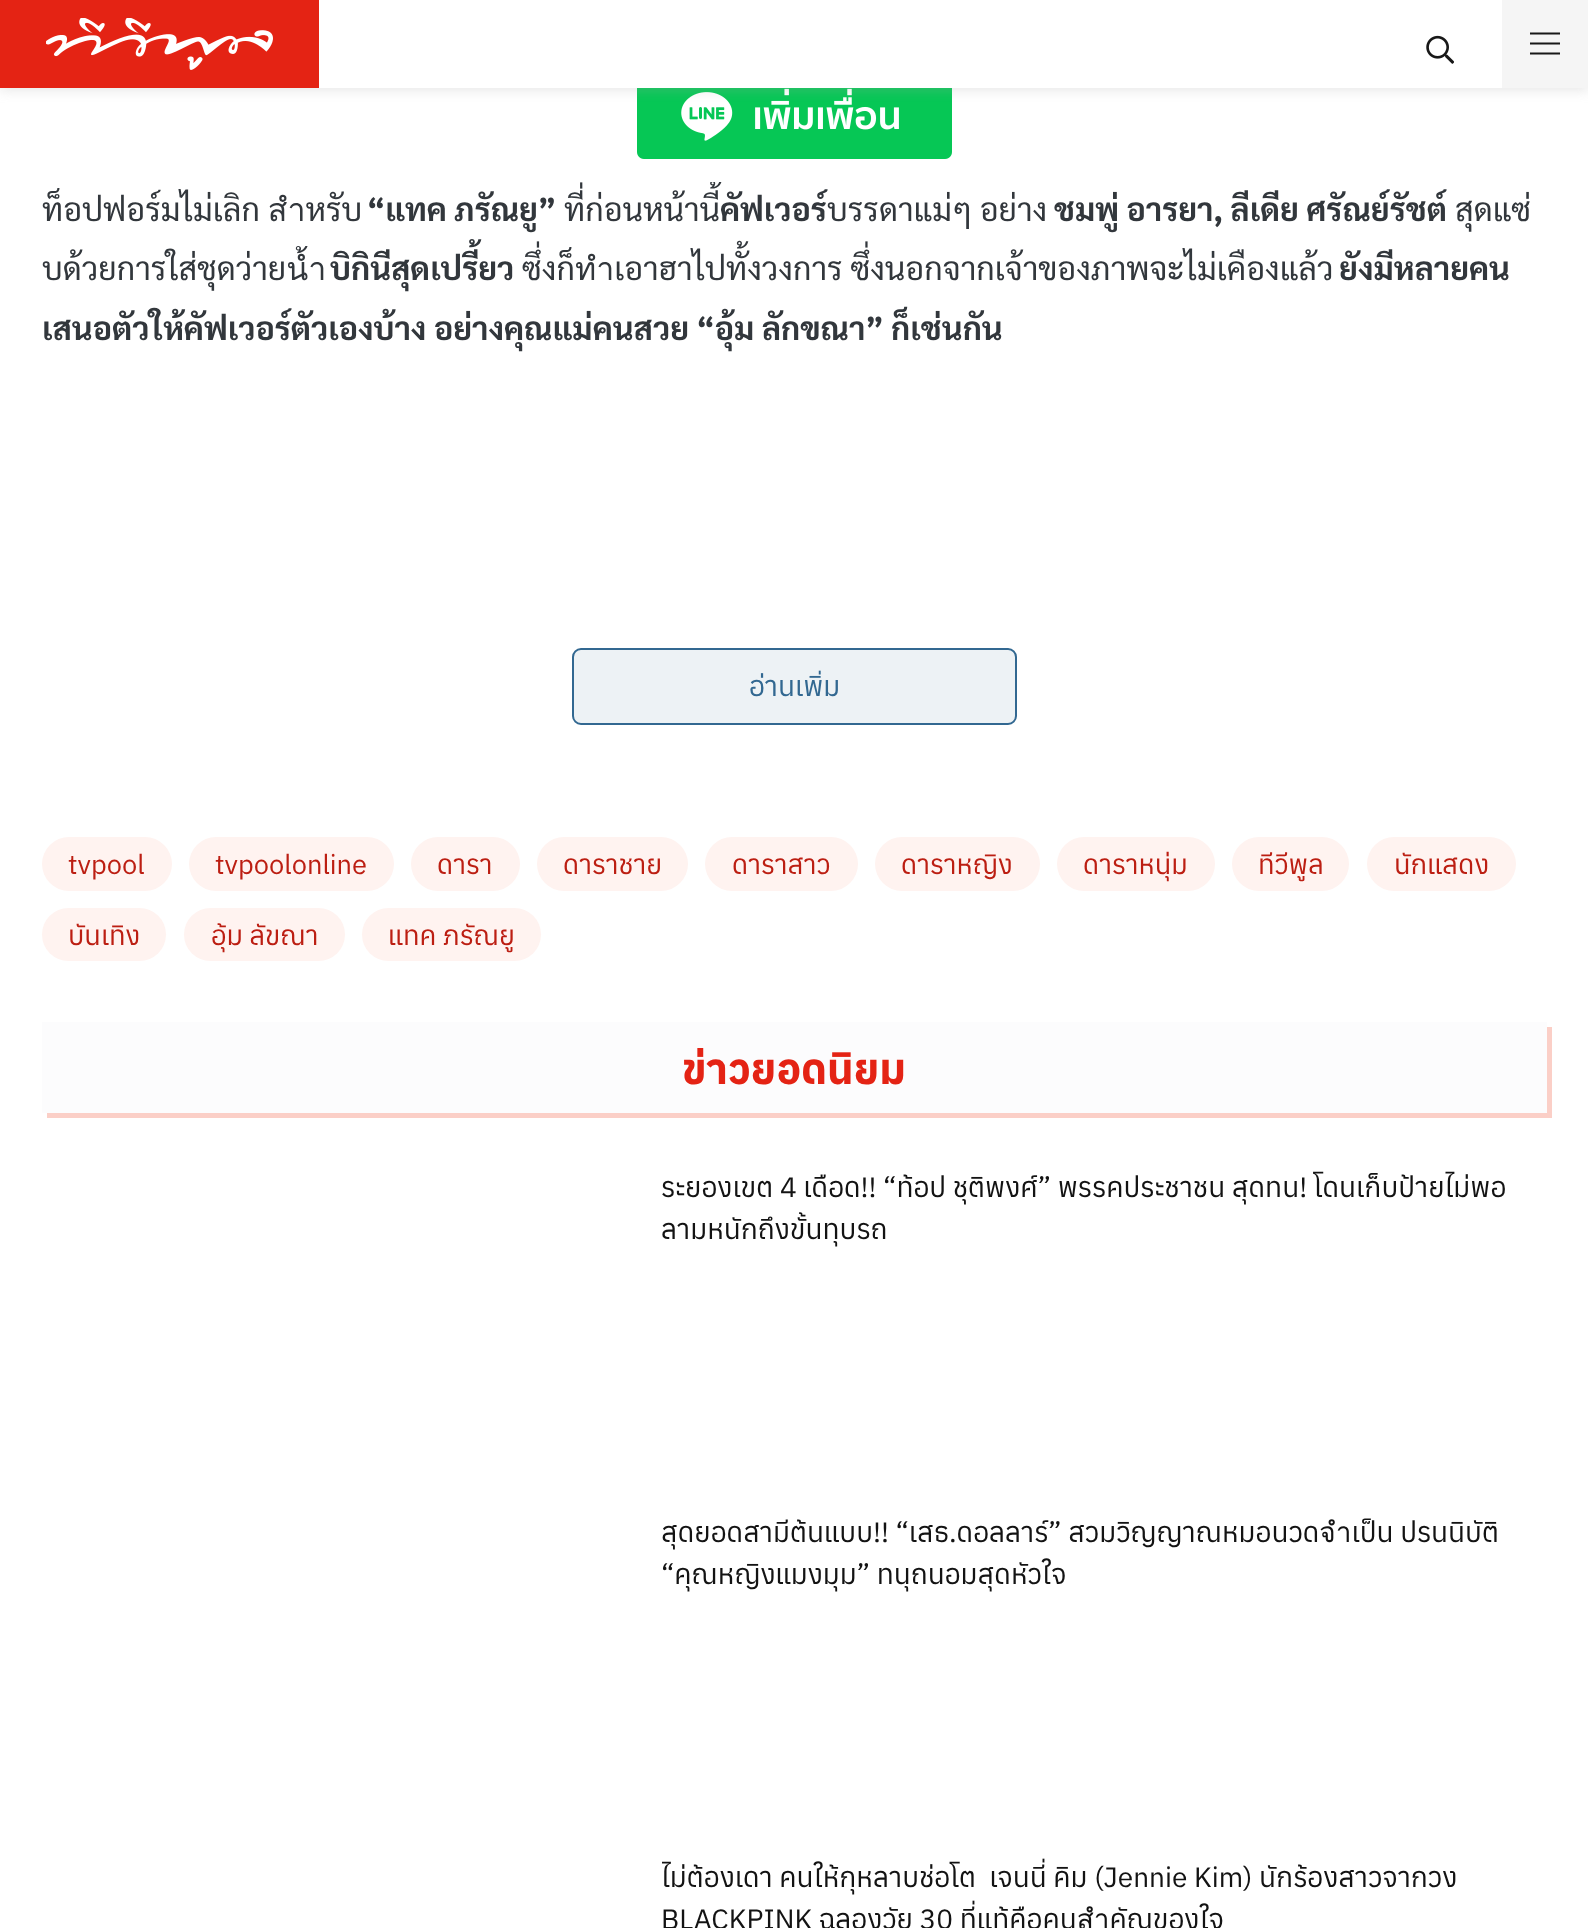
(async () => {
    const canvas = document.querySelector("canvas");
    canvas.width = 1588;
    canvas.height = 1928;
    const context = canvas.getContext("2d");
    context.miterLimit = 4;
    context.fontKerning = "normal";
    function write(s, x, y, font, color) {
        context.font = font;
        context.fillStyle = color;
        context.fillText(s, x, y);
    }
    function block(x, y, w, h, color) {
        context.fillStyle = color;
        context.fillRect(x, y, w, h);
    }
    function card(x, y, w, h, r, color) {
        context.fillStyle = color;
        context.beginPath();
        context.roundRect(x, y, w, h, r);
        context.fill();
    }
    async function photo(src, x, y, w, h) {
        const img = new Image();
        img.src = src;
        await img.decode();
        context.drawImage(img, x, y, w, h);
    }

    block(0, 0, 1588, 1928, "rgb(255, 255, 255)");
    await photo("media/3.png", 637, 88, 315, 71);
    context.fillStyle = "rgba(169, 169, 169, 0.25)";
    context.filter = "blur(6px)";
    context.beginPath();
    context.rect(0, 4, 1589, 87);
    context.fill();
    context.filter = "none";
    block(319, 0, 1183, 88, "rgb(255, 255, 255)");
    block(0, 0, 319, 88, "rgb(228, 35, 20)");
    await photo("media/1.png", 46, 18, 227, 52);
    await photo("media/2.png", 1426, 35, 28, 29);
    block(1502, 0, 86, 88, "rgb(245, 245, 245)");
    context.beginPath();
    context.moveTo(1530, 33.5);
    context.lineTo(1560, 33.5);
    context.moveTo(1530, 43.5);
    context.lineTo(1560, 43.5);
    context.moveTo(1530, 53.5);
    context.lineTo(1560, 53.5);
    context.strokeStyle = "rgb(24, 24, 24)";
    context.lineWidth = 1.8;
    context.stroke();
    context.save();
    context.beginPath();
    context.rect(42, 182, 1505, 613);
    context.clip();
    write("ท็อปฟอร์มไม่เลิก สำหรับ", 42, 221, "32.2px Sarabun", "rgb(50, 55, 60)");
    context.restore();
    write("“แทค ภรัณยู”", 367, 221, "bold 32.2px Sarabun", "rgb(50, 55, 60)");
    context.save();
    context.beginPath();
    context.rect(42, 182, 1505, 613);
    context.clip();
    write("ที่ก่อนหน้านี้", 564, 221, "32.2px Sarabun", "rgb(50, 55, 60)");
    context.restore();
    write("คัฟเวอร์", 720, 221, "bold 32.2px Sarabun", "rgb(50, 55, 60)");
    write("บรรดาแม่ๆ อย่าง", 827, 221, "32.2px Sarabun", "rgb(50, 55, 60)");
    write("ชมพู่ อารยา, ลีเดีย ศรัณย์รัชต์", 1054, 221, "bold 32.2px Sarabun", "rgb(50, 55, 60)");
    write("สุดแซ่", 1455, 221, "32.2px Sarabun", "rgb(50, 55, 60)");
    write("บด้วยการใส่ชุดว่ายน้ำ", 42, 280, "32.2px Sarabun", "rgb(50, 55, 60)");
    write("บิกินีสุดเปรี้ยว", 330, 280, "bold 32.2px Sarabun", "rgb(50, 55, 60)");
    write("ซึ่งก็ทำเอาฮาไปทั้งวงการ ซึ่งนอกจากเจ้าของภาพจะไม่เคืองแล้ว", 522, 280, "32.2px Sarabun", "rgb(50, 55, 60)");
    write("ยังมีหลายคน", 1339, 280, "bold 32.2px Sarabun", "rgb(50, 55, 60)");
    write("เสนอตัวให้คัฟเวอร์ตัวเองบ้าง อย่างคุณแม่คนสวย “อุ้ม ลักขณา” ก็เช่นกัน", 42, 340, "bold 32.2px Sarabun", "rgb(50, 55, 60)");
    context.fillStyle = "rgb(237, 242, 245)";
    context.beginPath();
    context.roundRect(573, 649, 443, 75, 8);
    context.fill();
    context.strokeStyle = "rgb(50, 104, 145)";
    context.lineWidth = 2;
    context.stroke();
    write("อ่านเพิ่ม", 749, 696, "28px Anuphan", "rgb(50, 104, 145)");
    card(42, 837, 130, 54, 27, "rgb(255, 243, 240)");
    write("tvpool", 68, 874, "27.25px Anuphan", "rgb(188, 30, 18)");
    card(189, 837, 205, 54, 27, "rgb(255, 243, 240)");
    write("tvpoolonline", 215, 874, "27.25px Anuphan", "rgb(188, 30, 18)");
    card(411, 837, 109, 54, 27, "rgb(255, 243, 240)");
    write("ดารา", 437, 874, "27.25px Anuphan", "rgb(188, 30, 18)");
    card(537, 837, 151, 54, 27, "rgb(255, 243, 240)");
    write("ดาราชาย", 563, 874, "27.25px Anuphan", "rgb(188, 30, 18)");
    card(705, 837, 153, 54, 27, "rgb(255, 243, 240)");
    write("ดาราสาว", 732, 874, "27.25px Anuphan", "rgb(188, 30, 18)");
    card(875, 837, 165, 54, 27, "rgb(255, 243, 240)");
    write("ดาราหญิง", 901, 874, "27.25px Anuphan", "rgb(188, 30, 18)");
    card(1057, 837, 158, 54, 27, "rgb(255, 243, 240)");
    write("ดาราหนุ่ม", 1083, 874, "27.25px Anuphan", "rgb(188, 30, 18)");
    card(1232, 837, 117, 54, 27, "rgb(255, 243, 240)");
    write("ทีวีพูล", 1258, 874, "27.25px Anuphan", "rgb(188, 30, 18)");
    card(1367, 837, 149, 54, 27, "rgb(255, 243, 240)");
    write("นักแสดง", 1394, 874, "27.25px Anuphan", "rgb(188, 30, 18)");
    card(42, 908, 124, 53, 26.5, "rgb(255, 243, 240)");
    write("บันเทิง", 68, 945, "27.25px Anuphan", "rgb(188, 30, 18)");
    card(184, 908, 161, 53, 26.5, "rgb(255, 243, 240)");
    write("อุ้ม ลัขณา", 211, 945, "27.25px Anuphan", "rgb(188, 30, 18)");
    card(362, 908, 179, 53, 26.5, "rgb(255, 243, 240)");
    write("แทค ภรัณยู", 388, 945, "27.25px Anuphan", "rgb(188, 30, 18)");
    context.fillStyle = "rgb(251, 207, 199)";
    context.beginPath();
    context.moveTo(47, 1113);
    context.lineTo(47, 1118);
    context.lineTo(1552, 1118);
    context.lineTo(1552, 1027);
    context.lineTo(1547, 1027);
    context.lineTo(1547, 1113);
    context.closePath();
    context.fill();
    block(42, 1022, 1505, 91, "rgb(252, 252, 253)");
    write("ข่าวยอดนิยม", 682, 1084, "bold 42px Anuphan", "rgb(228, 35, 20)");
    write("ระยองเขต 4 เดือด!! “ท้อป ชุติพงศ์” พรรคประชาชน สุดทน! โดนเก็บป้ายไม่พอ", 661, 1197, "28px Anuphan", "rgb(19, 19, 19)");
    write("ลามหนักถึงขั้นทุบรถ", 661, 1239, "28px Anuphan", "rgb(19, 19, 19)");
    context.save();
    context.beginPath();
    context.rect(662, 1510, 885, 84);
    context.clip();
    write("สุดยอดสามีต้นแบบ!! “เสธ.ดอลลาร์” สวมวิญญาณหมอนวดจำเป็น ปรนนิบัติ", 661, 1542, "28px Anuphan", "rgb(19, 19, 19)");
    context.restore();
    write("“คุณหญิงแมงมุม” ทนุถนอมสุดหัวใจ", 661, 1584, "28px Anuphan", "rgb(19, 19, 19)");
    context.save();
    context.beginPath();
    context.rect(662, 1855, 885, 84);
    context.clip();
    write("ไม่ต้องเดา คนให้กุหลาบช่อโต  เจนนี่ คิม (Jennie Kim) นักร้องสาวจากวง", 661, 1887, "28px Anuphan", "rgb(19, 19, 19)");
    context.restore();
    write("BLACKPINK ฉลองวัย 30 ที่แท้คือคนสำคัญของใจ", 661, 1929, "28px Anuphan", "rgb(19, 19, 19)");
})();
